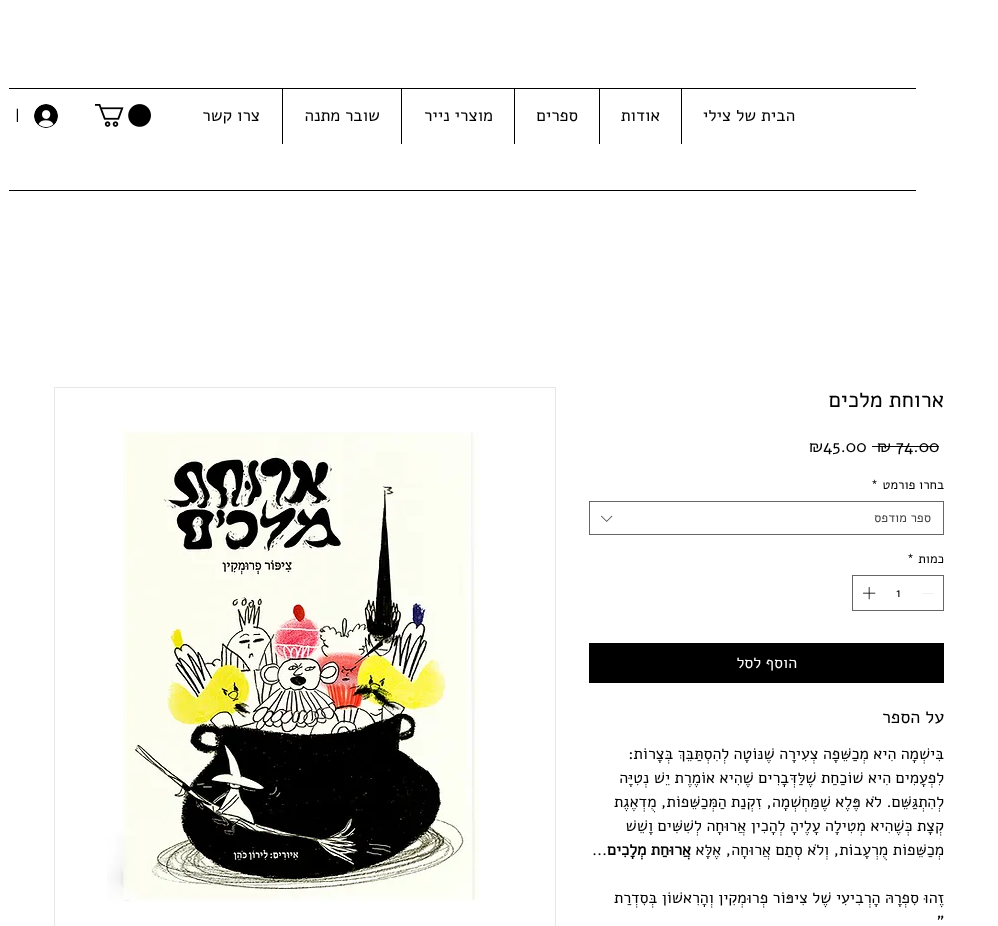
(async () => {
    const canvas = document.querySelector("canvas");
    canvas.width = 998;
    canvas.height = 926;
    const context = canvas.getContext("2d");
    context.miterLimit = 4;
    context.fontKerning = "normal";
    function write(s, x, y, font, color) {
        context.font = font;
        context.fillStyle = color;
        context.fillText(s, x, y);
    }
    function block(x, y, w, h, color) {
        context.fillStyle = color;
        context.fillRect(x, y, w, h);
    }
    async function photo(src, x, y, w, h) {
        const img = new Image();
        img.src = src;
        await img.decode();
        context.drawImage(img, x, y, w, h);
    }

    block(0, 0, 998, 926, "rgb(255, 255, 255)");
    block(681, 88, 1, 56, "rgb(0, 0, 0)");
    block(599, 88, 1, 56, "rgb(0, 0, 0)");
    block(514, 88, 1, 56, "rgb(0, 0, 0)");
    block(401, 88, 1, 56, "rgb(0, 0, 0)");
    block(282, 88, 1, 56, "rgb(0, 0, 0)");
    block(9, 88, 907, 1, "rgb(0, 0, 0)");
    context.direction = "rtl";
    write("הבית של צילי", 795, 121, "17px Alef", "rgb(0, 0, 0)");
    write("אודות", 660, 121, "17px Alef", "rgb(0, 0, 0)");
    write("ספרים", 578, 121, "17px Alef", "rgb(0, 0, 0)");
    write("מוצרי נייר", 493, 121, "17px Alef", "rgb(0, 0, 0)");
    write("שובר מתנה", 380, 121, "17px Alef", "rgb(0, 0, 0)");
    write("צרו קשר", 260, 121, "17px Alef", "rgb(0, 0, 0)");
    await photo("media/1.png", 95, 104, 56, 23);
    await photo("media/2.png", 34, 104, 24, 24);
    context.direction = "ltr";
    write("|", 15, 121, "16px Alef", "rgb(0, 0, 0)");
    block(9, 190, 907, 1, "rgb(0, 0, 0)");
    context.direction = "rtl";
    write("ארוחת מלכים", 944, 407, "22px Alef", "rgb(0, 0, 0)");
    context.direction = "ltr";
    write("₪ 74.00", 877, 452, "17px Alef", "rgb(0, 0, 0)");
    block(872, 446, 67, 1, "rgb(0, 0, 0)");
    write("₪45.00", 809, 452, "17px Alef", "rgb(0, 0, 0)");
    write("*", 871, 489, "13px Alef", "rgb(0, 0, 0)");
    context.direction = "rtl";
    write("בחרו פורמט", 944, 489, "13px Alef", "rgb(0, 0, 0)");
    context.strokeStyle = "rgb(102, 102, 102)";
    context.strokeRect(589.5, 501.5, 354, 33);
    write("ספר מודפס", 931, 522, "13px Alef", "rgb(68, 68, 68)");
    await photo("media/3.png", 601, 515, 12, 7);
    context.direction = "ltr";
    write("*", 907, 563, "13px Alef", "rgb(0, 0, 0)");
    context.direction = "rtl";
    write("כמות", 944, 563, "13px Alef", "rgb(0, 0, 0)");
    context.strokeRect(852.5, 575.5, 91, 35);
    context.fillStyle = "rgb(227, 227, 227)";
    context.beginPath();
    context.moveTo(934, 593);
    context.lineTo(934, 593.5);
    context.lineTo(922, 593.5);
    context.lineTo(922, 593);
    context.closePath();
    context.fill("evenodd");
    context.direction = "ltr";
    write("1", 896, 597, "13px Alef", "rgb(0, 0, 0)");
    await photo("media/4.png", 863, 587, 13, 13);
    block(589, 643, 355, 40, "rgb(0, 0, 0)");
    context.direction = "rtl";
    write("הוסף לסל", 797, 668, "16px Alef", "rgb(255, 255, 255)");
    write("על הספר", 944, 723, "18px Alef", "rgb(0, 0, 0)");
    write("בִּישְׁמָה הִיא מְכַשֵּׁפָה צְעִירָה שֶׁנּוֹטָה לְהִסְתַּבֵּךְ בְּצָרוֹת:", 944, 759, "16px Alef", "rgb(0, 0, 0)");
    write("לִפְעָמִים הִיא שׁוֹכַחַת שֶׁלַּדְּבָרִים שֶׁהִיא אוֹמֶרֶת יֵשׁ נְטִיָּה", 944, 783, "16px Alef", "rgb(0, 0, 0)");
    write("לְהִתְגַּשֵּׁם. לֹא פֶּלֶא שֶׁמַּחְשְׁמָה, זִקְנַת הַמְּכַשֵּׁפוֹת, מֻדְאֶגֶת", 944, 807, "16px Alef", "rgb(0, 0, 0)");
    write("קְצָת כְּשֶׁהִיא מְטִילָה עָלֶיהָ לְהָכִין אֲרוּחָה לְשִׁשִּׁים וָשֵׁשׁ", 944, 831, "16px Alef", "rgb(0, 0, 0)");
    write("מְכַשֵּׁפוֹת מֻרְעָבוֹת, וְלֹא סְתַם אֲרוּחָה, אֶלָּא", 944, 855, "16px Alef", "rgb(0, 0, 0)");
    write("אֲרוּחַת מְלָכִים", 691, 855, "bold 16px Alef", "rgb(0, 0, 0)");
    context.direction = "ltr";
    write("...", 592, 855, "16px Alef", "rgb(0, 0, 0)");
    context.direction = "rtl";
    write("זֶהוּ סִפְרָהּ הָרְבִיעִי שֶׁל צִיפּוֹר פְרוּמְקִין וְהָרִאשׁוֹן בְּסִדְרַת", 944, 903, "16px Alef", "rgb(0, 0, 0)");
    context.direction = "ltr";
    write("\"", 937, 927, "16px Alef", "rgb(0, 0, 0)");
    context.strokeStyle = "rgb(232, 230, 230)";
    context.strokeRect(54.5, 387.5, 501, 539);
    await photo("media/5.png", 107, 428, 372, 474);
})();
